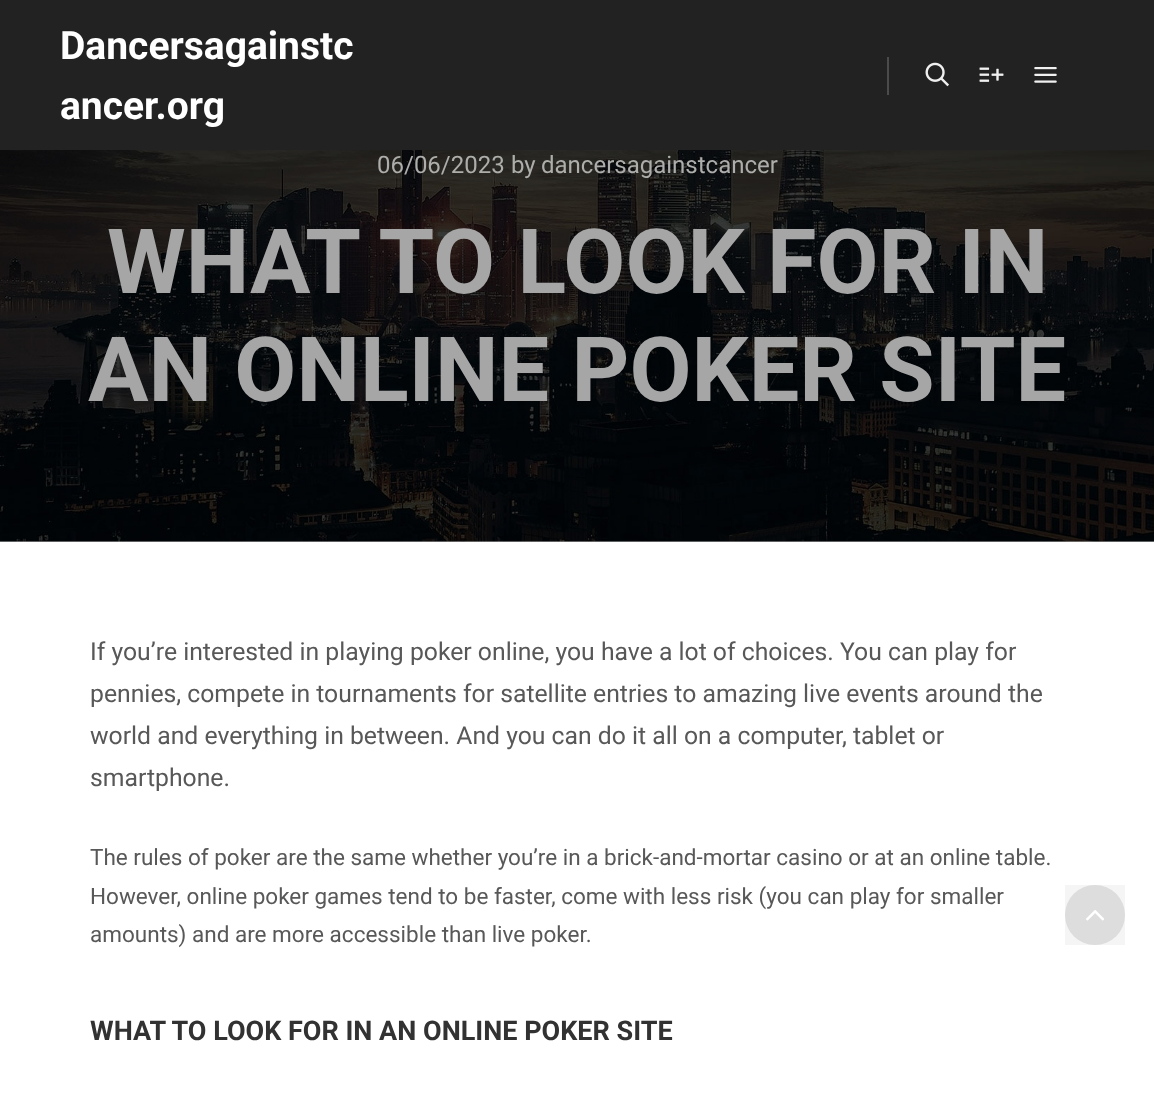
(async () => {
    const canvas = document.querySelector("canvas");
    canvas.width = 1154;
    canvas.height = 1095;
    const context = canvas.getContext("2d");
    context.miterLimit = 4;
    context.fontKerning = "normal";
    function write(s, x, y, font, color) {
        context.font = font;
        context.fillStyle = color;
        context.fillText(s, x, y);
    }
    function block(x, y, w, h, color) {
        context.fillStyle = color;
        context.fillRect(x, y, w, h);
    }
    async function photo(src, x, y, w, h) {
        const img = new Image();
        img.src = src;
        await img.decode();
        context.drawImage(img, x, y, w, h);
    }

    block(0, 0, 1154, 1095, "rgb(186, 186, 186)");
    await photo("media/4.png", 0, 150, 1154, 392);
    context.fillStyle = "rgba(0, 0, 0, 0.09)";
    context.filter = "blur(9px)";
    context.beginPath();
    context.rect(0, 0, 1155, 150);
    context.fill();
    context.filter = "none";
    block(0, 0, 1154, 150, "rgb(34, 34, 34)");
    write("Dancersagainstc", 60, 59, "bold 39px Roboto", "rgb(255, 255, 255)");
    write("ancer.org", 60, 119, "bold 39px Roboto", "rgb(255, 255, 255)");
    block(887, 57, 2, 38, "rgb(75, 75, 75)");
    await photo("media/1.png", 925, 62, 24, 25);
    await photo("media/2.png", 979, 67, 25, 15);
    await photo("media/3.png", 1034, 67, 23, 16);
    write("06/06/2023", 377, 173, "24px Roboto", "rgb(173, 173, 171)");
    write("by", 511, 173, "24px Roboto", "rgb(173, 173, 171)");
    write("dancersagainstcancer", 541, 173, "24px Roboto", "rgb(173, 173, 171)");
    write("WHAT TO LOOK FOR IN", 107, 293, "bold 90px Roboto", "rgb(166, 166, 166)");
    write("AN ONLINE POKER SITE", 88, 401, "bold 90px Roboto", "rgb(166, 166, 166)");
    block(0, 542, 1154, 553, "rgb(255, 255, 255)");
    write("If you’re interested in playing poker online, you have a lot of choices. You can play for", 90, 660, "24.75px Roboto", "rgb(88, 88, 88)");
    write("pennies, compete in tournaments for satellite entries to amazing live events around the", 90, 702, "24.75px Roboto", "rgb(88, 88, 88)");
    write("world and everything in between. And you can do it all on a computer, tablet or", 90, 744, "24.75px Roboto", "rgb(88, 88, 88)");
    write("smartphone.", 90, 786, "24.75px Roboto", "rgb(88, 88, 88)");
    write("The rules of poker are the same whether you’re in a brick-and-mortar casino or at an online table.", 90, 865, "22.5px Roboto", "rgb(88, 88, 88)");
    write("However, online poker games tend to be faster, come with less risk (you can play for smaller", 90, 904, "22.5px Roboto", "rgb(88, 88, 88)");
    write("amounts) and are more accessible than live poker.", 90, 942, "22.5px Roboto", "rgb(88, 88, 88)");
    write("WHAT TO LOOK FOR IN AN ONLINE POKER SITE", 90, 1040, "bold 27px Roboto", "rgb(50, 50, 50)");
    context.fillStyle = "rgb(230, 230, 230)";
    context.beginPath();
    context.arc(1095, 915, 30, 0, Math.PI * 2);
    context.fill();
    block(1065, 885, 60, 60, "rgba(0, 0, 0, 0.04)");
    await photo("media/5.png", 1086, 910, 18, 11);
})();
